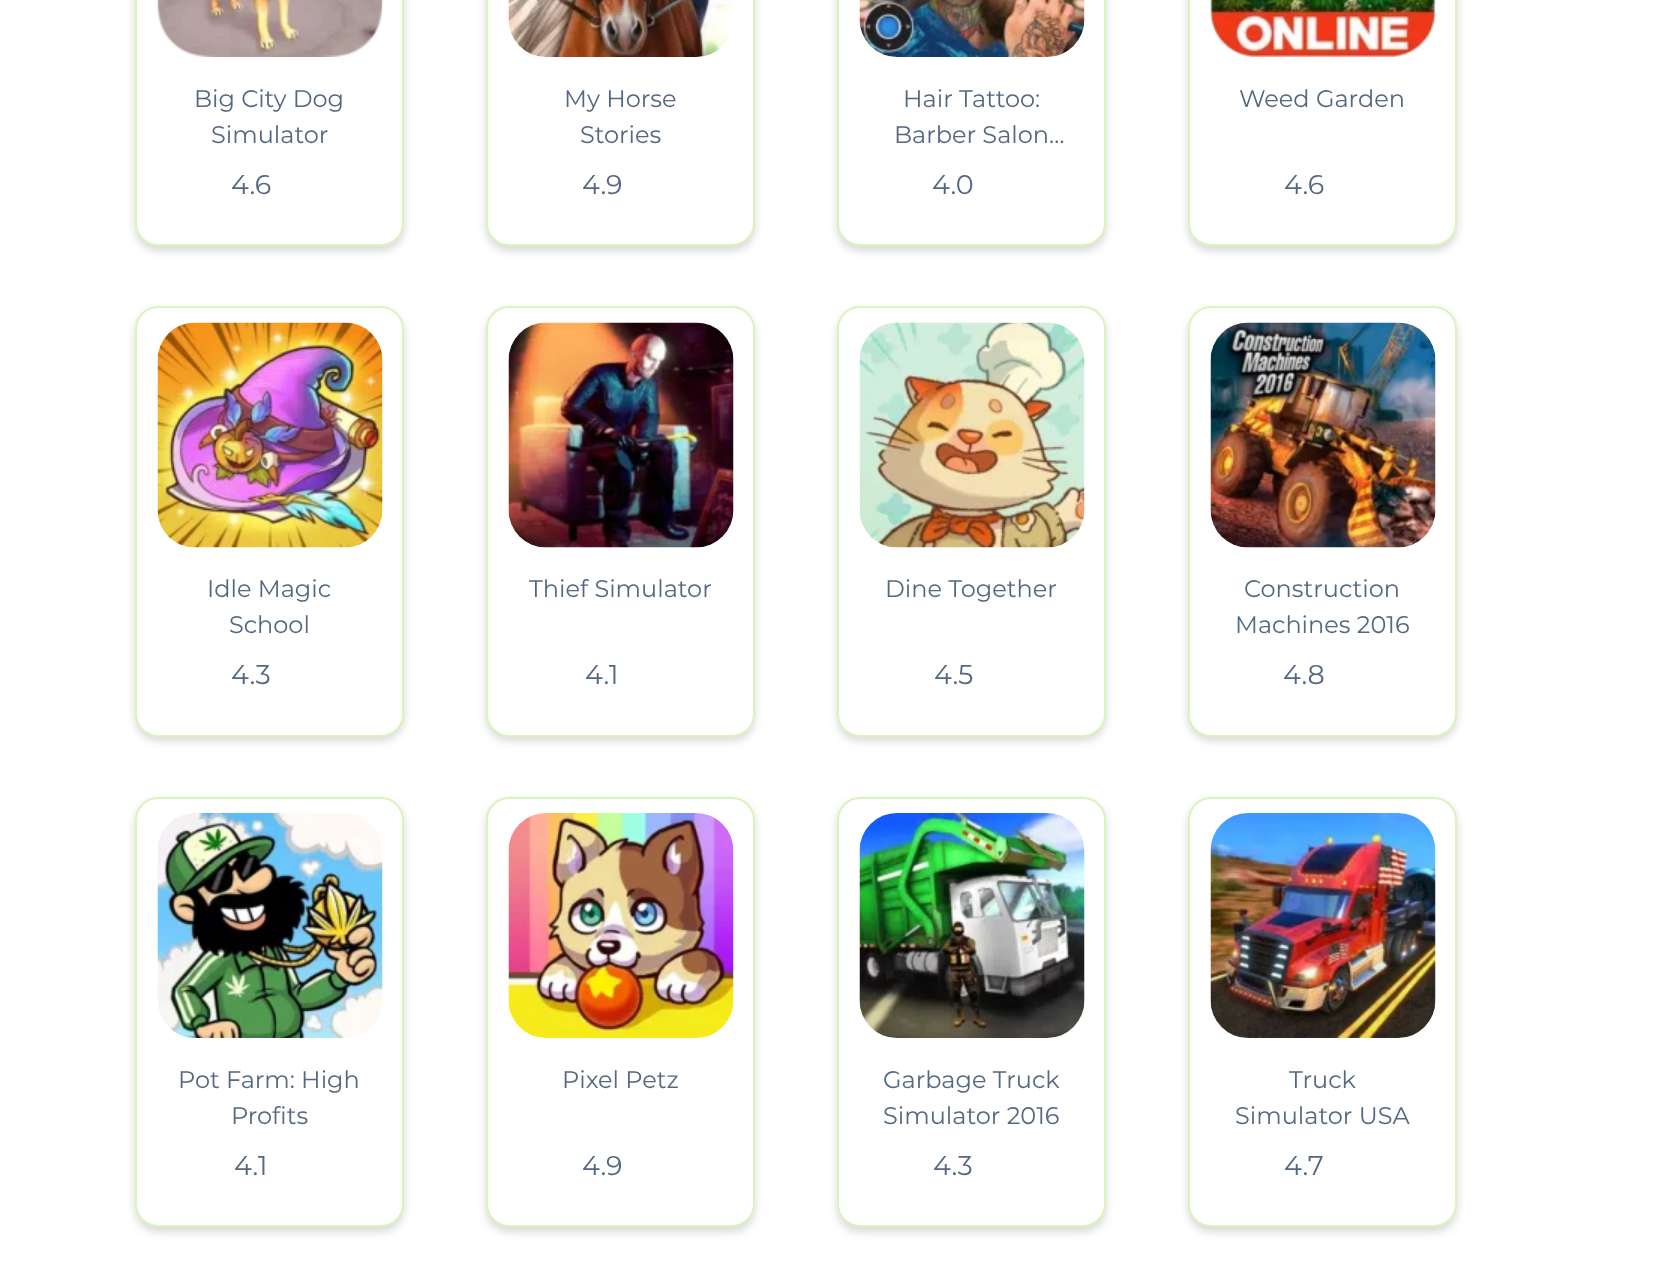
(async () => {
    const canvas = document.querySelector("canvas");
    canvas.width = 1659;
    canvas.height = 1274;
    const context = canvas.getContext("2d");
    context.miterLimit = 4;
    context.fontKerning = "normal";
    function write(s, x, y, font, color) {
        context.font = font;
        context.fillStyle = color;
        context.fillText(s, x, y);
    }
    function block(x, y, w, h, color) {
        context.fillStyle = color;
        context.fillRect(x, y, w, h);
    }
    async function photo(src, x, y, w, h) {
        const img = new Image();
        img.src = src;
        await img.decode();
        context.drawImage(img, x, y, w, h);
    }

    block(0, 0, 1659, 1274, "rgb(255, 255, 255)");
    context.fillStyle = "rgba(0, 0, 0, 0.15)";
    context.filter = "blur(4.5px)";
    context.beginPath();
    context.roundRect(135, -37, 269, 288, 23);
    context.fill();
    context.filter = "none";
    context.fillStyle = "rgb(255, 255, 255)";
    context.beginPath();
    context.roundRect(136, -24, 267, 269, 22);
    context.fill();
    context.strokeStyle = "rgb(218, 244, 187)";
    context.lineWidth = 2;
    context.stroke();
    await photo("media/1.png", 157, 0, 226, 57);
    write("Big City Dog", 194, 107, "24px Montserrat", "rgb(84, 104, 129)");
    write("Simulator", 211, 143, "24px Montserrat", "rgb(84, 104, 129)");
    write("4.6", 231, 194, "27px Montserrat", "rgb(84, 104, 129)");
    context.fillStyle = "rgba(0, 0, 0, 0.15)";
    context.filter = "blur(4.5px)";
    context.beginPath();
    context.roundRect(486, -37, 269, 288, 23);
    context.fill();
    context.filter = "none";
    context.fillStyle = "rgb(255, 255, 255)";
    context.beginPath();
    context.roundRect(487, -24, 267, 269, 22);
    context.fill();
    context.stroke();
    await photo("media/2.png", 508, 0, 226, 57);
    write("My Horse", 564, 107, "24px Montserrat", "rgb(84, 104, 129)");
    write("Stories", 580, 143, "24px Montserrat", "rgb(84, 104, 129)");
    write("4.9", 582, 194, "27px Montserrat", "rgb(84, 104, 129)");
    context.fillStyle = "rgba(0, 0, 0, 0.15)";
    context.filter = "blur(4.5px)";
    context.beginPath();
    context.roundRect(837, -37, 269, 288, 23);
    context.fill();
    context.filter = "none";
    context.fillStyle = "rgb(255, 255, 255)";
    context.beginPath();
    context.roundRect(838, -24, 267, 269, 22);
    context.fill();
    context.stroke();
    await photo("media/3.png", 859, 0, 226, 57);
    write("Hair Tattoo:", 903, 107, "24px Montserrat", "rgb(84, 104, 129)");
    write("Barber Salon…", 894, 143, "24px Montserrat", "rgb(84, 104, 129)");
    write("4.0", 932, 194, "27px Montserrat", "rgb(84, 104, 129)");
    context.fillStyle = "rgba(0, 0, 0, 0.15)";
    context.filter = "blur(4.5px)";
    context.beginPath();
    context.roundRect(1188, -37, 269, 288, 23);
    context.fill();
    context.filter = "none";
    context.fillStyle = "rgb(255, 255, 255)";
    context.beginPath();
    context.roundRect(1189, -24, 267, 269, 22);
    context.fill();
    context.stroke();
    await photo("media/4.png", 1210, 0, 226, 57);
    write("Weed Garden", 1239, 107, "24px Montserrat", "rgb(84, 104, 129)");
    write("4.6", 1284, 194, "27px Montserrat", "rgb(84, 104, 129)");
    context.fillStyle = "rgba(0, 0, 0, 0.15)";
    context.filter = "blur(4.5px)";
    context.beginPath();
    context.roundRect(135, 311, 269, 430, 23);
    context.fill();
    context.filter = "none";
    context.fillStyle = "rgb(255, 255, 255)";
    context.beginPath();
    context.roundRect(136, 307, 267, 429, 22);
    context.fill();
    context.stroke();
    await photo("media/5.png", 157, 322, 226, 226);
    write("Idle Magic", 207, 597, "24px Montserrat", "rgb(84, 104, 129)");
    write("School", 229, 633, "24px Montserrat", "rgb(84, 104, 129)");
    write("4.3", 231, 684, "27px Montserrat", "rgb(84, 104, 129)");
    context.fillStyle = "rgba(0, 0, 0, 0.15)";
    context.filter = "blur(4.5px)";
    context.beginPath();
    context.roundRect(486, 311, 269, 430, 23);
    context.fill();
    context.filter = "none";
    context.fillStyle = "rgb(255, 255, 255)";
    context.beginPath();
    context.roundRect(487, 307, 267, 429, 22);
    context.fill();
    context.stroke();
    await photo("media/6.png", 508, 322, 226, 226);
    write("Thief Simulator", 529, 597, "24px Montserrat", "rgb(84, 104, 129)");
    write("4.1", 585, 684, "27px Montserrat", "rgb(84, 104, 129)");
    context.fillStyle = "rgba(0, 0, 0, 0.15)";
    context.filter = "blur(4.5px)";
    context.beginPath();
    context.roundRect(837, 311, 269, 430, 23);
    context.fill();
    context.filter = "none";
    context.fillStyle = "rgb(255, 255, 255)";
    context.beginPath();
    context.roundRect(838, 307, 267, 429, 22);
    context.fill();
    context.stroke();
    await photo("media/7.png", 859, 322, 226, 226);
    write("Dine Together", 885, 597, "24px Montserrat", "rgb(84, 104, 129)");
    write("4.5", 934, 684, "27px Montserrat", "rgb(84, 104, 129)");
    context.fillStyle = "rgba(0, 0, 0, 0.15)";
    context.filter = "blur(4.5px)";
    context.beginPath();
    context.roundRect(1188, 311, 269, 430, 23);
    context.fill();
    context.filter = "none";
    context.fillStyle = "rgb(255, 255, 255)";
    context.beginPath();
    context.roundRect(1189, 307, 267, 429, 22);
    context.fill();
    context.stroke();
    await photo("media/8.png", 1210, 322, 226, 226);
    write("Construction", 1244, 597, "24px Montserrat", "rgb(84, 104, 129)");
    write("Machines 2016", 1235, 633, "24px Montserrat", "rgb(84, 104, 129)");
    write("4.8", 1283, 684, "27px Montserrat", "rgb(84, 104, 129)");
    context.fillStyle = "rgba(0, 0, 0, 0.15)";
    context.filter = "blur(4.5px)";
    context.beginPath();
    context.roundRect(135, 801, 269, 431, 23);
    context.fill();
    context.filter = "none";
    context.fillStyle = "rgb(255, 255, 255)";
    context.beginPath();
    context.roundRect(136, 798, 267, 428, 22);
    context.fill();
    context.stroke();
    await photo("media/9.png", 157, 813, 226, 225);
    write("Pot Farm: High", 178, 1088, "24px Montserrat", "rgb(84, 104, 129)");
    write("Profits", 231, 1124, "24px Montserrat", "rgb(84, 104, 129)");
    write("4.1", 234, 1175, "27px Montserrat", "rgb(84, 104, 129)");
    context.fillStyle = "rgba(0, 0, 0, 0.15)";
    context.filter = "blur(4.5px)";
    context.beginPath();
    context.roundRect(486, 801, 269, 431, 23);
    context.fill();
    context.filter = "none";
    context.fillStyle = "rgb(255, 255, 255)";
    context.beginPath();
    context.roundRect(487, 798, 267, 428, 22);
    context.fill();
    context.stroke();
    await photo("media/10.png", 508, 813, 226, 225);
    write("Pixel Petz", 562, 1088, "24px Montserrat", "rgb(84, 104, 129)");
    write("4.9", 582, 1175, "27px Montserrat", "rgb(84, 104, 129)");
    context.fillStyle = "rgba(0, 0, 0, 0.15)";
    context.filter = "blur(4.5px)";
    context.beginPath();
    context.roundRect(837, 801, 269, 431, 23);
    context.fill();
    context.filter = "none";
    context.fillStyle = "rgb(255, 255, 255)";
    context.beginPath();
    context.roundRect(838, 798, 267, 428, 22);
    context.fill();
    context.stroke();
    await photo("media/11.png", 859, 813, 226, 225);
    write("Garbage Truck", 883, 1088, "24px Montserrat", "rgb(84, 104, 129)");
    write("Simulator 2016", 883, 1124, "24px Montserrat", "rgb(84, 104, 129)");
    write("4.3", 933, 1175, "27px Montserrat", "rgb(84, 104, 129)");
    context.fillStyle = "rgba(0, 0, 0, 0.15)";
    context.filter = "blur(4.5px)";
    context.beginPath();
    context.roundRect(1188, 801, 269, 431, 23);
    context.fill();
    context.filter = "none";
    context.fillStyle = "rgb(255, 255, 255)";
    context.beginPath();
    context.roundRect(1189, 798, 267, 428, 22);
    context.fill();
    context.stroke();
    await photo("media/12.png", 1210, 813, 226, 225);
    write("Truck", 1289, 1088, "24px Montserrat", "rgb(84, 104, 129)");
    write("Simulator USA", 1235, 1124, "24px Montserrat", "rgb(84, 104, 129)");
    write("4.7", 1284, 1175, "27px Montserrat", "rgb(84, 104, 129)");
})();
